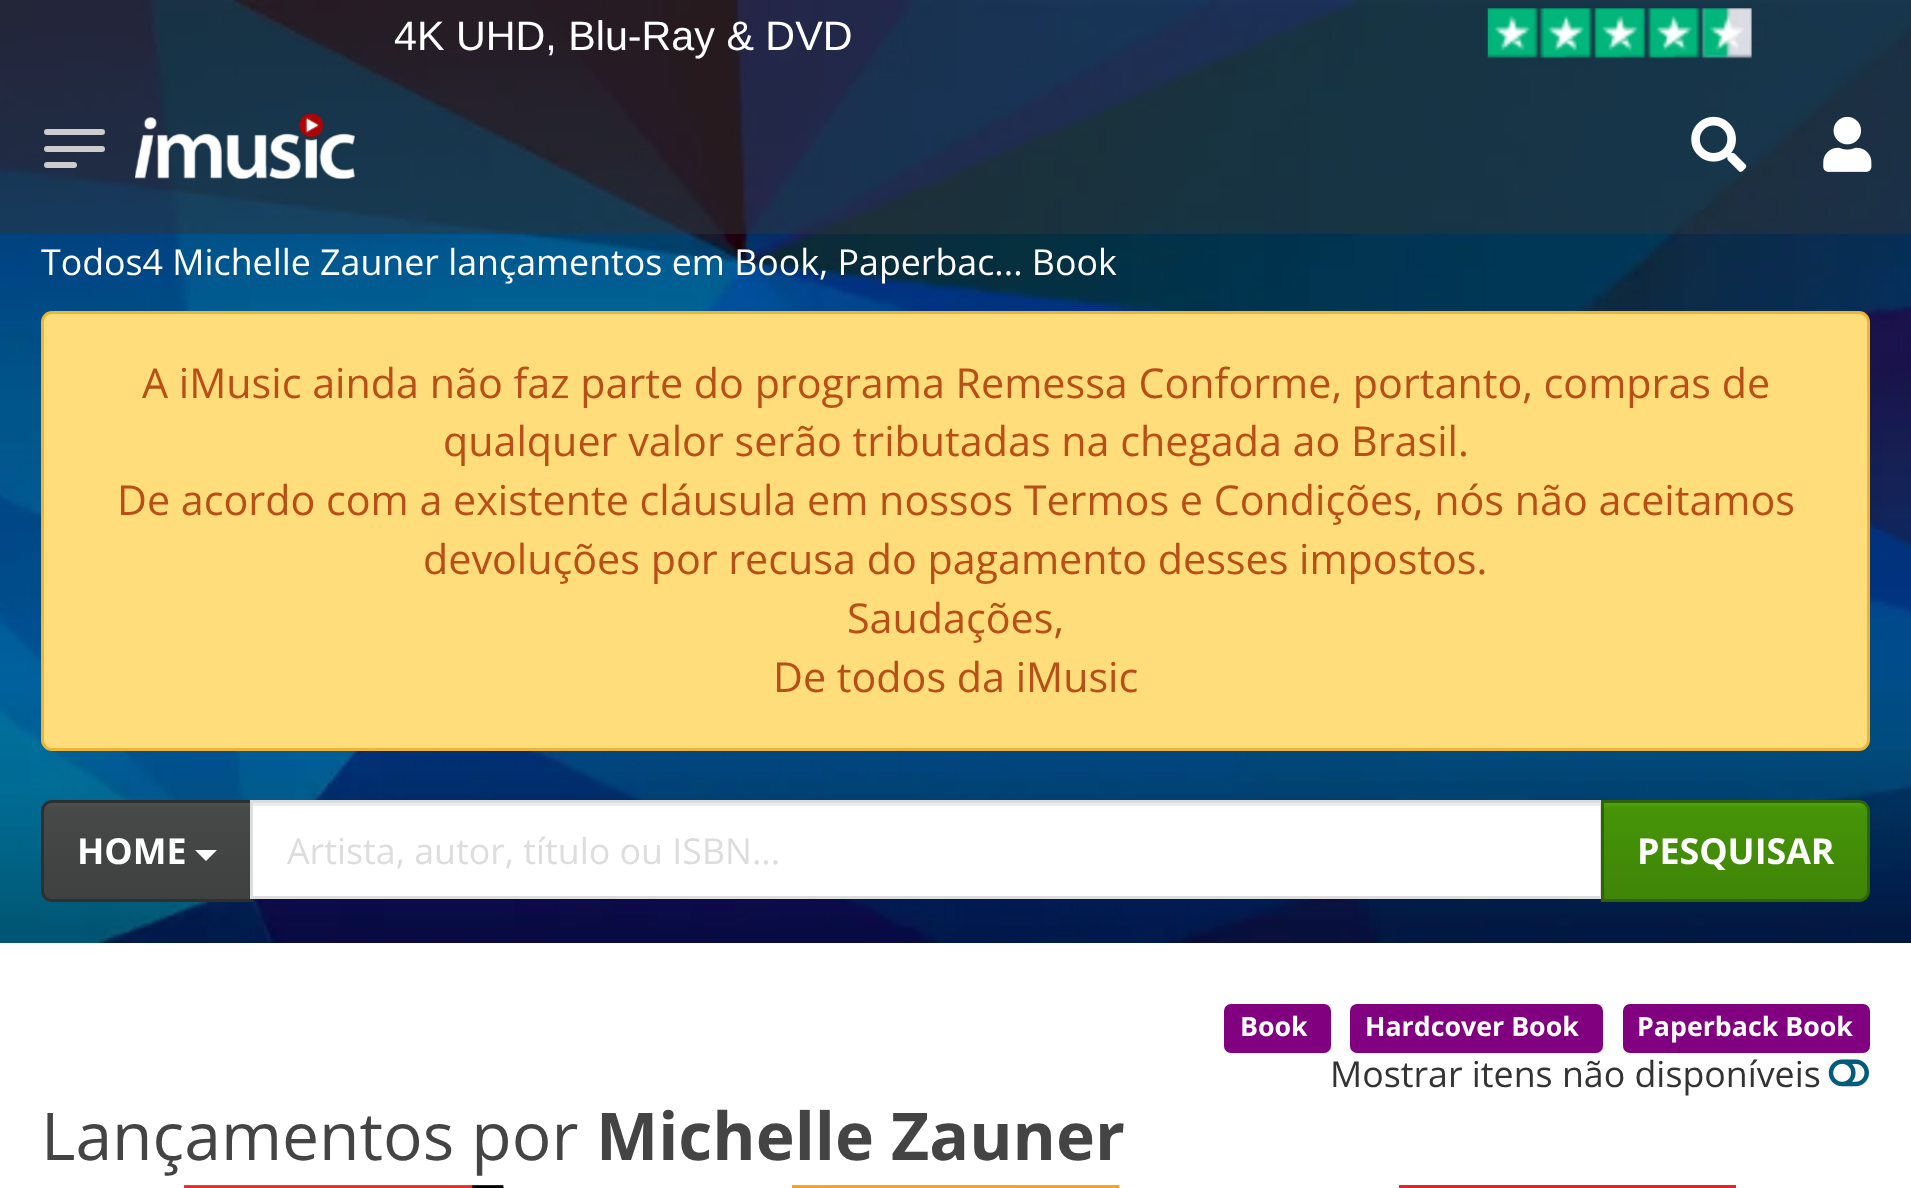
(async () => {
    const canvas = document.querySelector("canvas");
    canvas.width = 1911;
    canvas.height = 1188;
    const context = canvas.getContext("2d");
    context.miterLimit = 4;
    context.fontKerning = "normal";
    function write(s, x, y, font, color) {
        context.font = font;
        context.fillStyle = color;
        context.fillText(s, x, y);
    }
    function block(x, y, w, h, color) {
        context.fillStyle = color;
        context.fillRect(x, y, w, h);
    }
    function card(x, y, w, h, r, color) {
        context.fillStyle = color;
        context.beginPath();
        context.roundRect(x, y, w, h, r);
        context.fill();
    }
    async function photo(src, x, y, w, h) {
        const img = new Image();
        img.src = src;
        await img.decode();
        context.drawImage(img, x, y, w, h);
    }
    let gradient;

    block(0, 0, 1911, 1188, "rgb(255, 255, 255)");
    await photo("media/1.png", 0, 0, 1911, 943);
    block(0, 0, 1911, 234, "rgba(45, 51, 57, 0.5)");
    write("4K UHD, Blu-Ray & DVD", 394, 50, "41.25px Liberation Sans", "rgb(255, 255, 255)");
    await photo("media/2.png", 1487, 8, 265, 51);
    card(44, 129, 61, 6, 3, "rgb(204, 204, 204)");
    card(44, 146, 61, 6, 3, "rgb(204, 204, 204)");
    card(44, 162, 33, 6, 3, "rgb(204, 204, 204)");
    await photo("media/3.png", 135, 113, 220, 66);
    await photo("media/4.png", 1691, 116, 56, 56);
    await photo("media/5.png", 1823, 116, 49, 56);
    write("Todos4 Michelle Zauner lançamentos em Book, Paperbac... Book", 41, 275, "35.75px Open Sans", "rgb(255, 255, 255)");
    context.fillStyle = "rgb(255, 221, 122)";
    context.beginPath();
    context.roundRect(42.5, 312.5, 1826, 437, 9.5);
    context.fill();
    context.strokeStyle = "rgb(238, 180, 55)";
    context.lineWidth = 3;
    context.stroke();
    write("A iMusic ainda não faz parte do programa Remessa Conforme, portanto, compras de", 142, 398, "41.25px Open Sans", "rgb(185, 78, 23)");
    write("qualquer valor serão tributadas na chegada ao Brasil.", 443, 456, "41.25px Open Sans", "rgb(185, 78, 23)");
    write("De acordo com a existente cláusula em nossos Termos e Condições, nós não aceitamos", 117, 515, "41.25px Open Sans", "rgb(185, 78, 23)");
    write("devoluções por recusa do pagamento desses impostos.", 423, 574, "41.25px Open Sans", "rgb(185, 78, 23)");
    write("Saudações,", 847, 633, "41.25px Open Sans", "rgb(185, 78, 23)");
    write("De todos da iMusic", 773, 692, "41.25px Open Sans", "rgb(185, 78, 23)");
    gradient = context.createLinearGradient(147, 803, 147, 899);
    gradient.addColorStop(0, "rgb(79, 81, 81)");
    gradient.addColorStop(0.06, "rgb(71, 73, 73)");
    gradient.addColorStop(1, "rgb(63, 65, 65)");
    context.fillStyle = gradient;
    context.fillRect(44, 803, 206, 96);
    context.beginPath();
    context.roundRect(42.5, 801.5, 209, 99, [9.5, 0, 0, 9.5]);
    context.strokeStyle = "rgb(46, 47, 47)";
    context.stroke();
    write("HOME", 77, 864, "bold 35.75px Open Sans", "rgb(255, 255, 255)");
    context.beginPath();
    context.moveTo(195, 850);
    context.lineTo(217, 850);
    context.lineTo(206, 861);
    context.closePath();
    context.fill();
    block(253, 806, 1347, 90, "rgb(255, 255, 255)");
    block(253, 803, 1348, 3, "rgb(236, 236, 236)");
    context.strokeStyle = "rgb(221, 221, 221)";
    context.strokeRect(251.5, 801.5, 1350, 96);
    write("Artista, autor, título ou ISBN...", 287, 864, "35.75px Open Sans", "rgb(221, 221, 221)");
    gradient = context.createLinearGradient(1735, 803, 1735, 899);
    gradient.addColorStop(0, "rgb(77, 163, 9)");
    gradient.addColorStop(0.06, "rgb(70, 148, 8)");
    gradient.addColorStop(1, "rgb(63, 133, 7)");
    context.fillStyle = gradient;
    context.fillRect(1604, 803, 263, 96);
    context.beginPath();
    context.roundRect(1602.5, 801.5, 266, 99, [0, 9.5, 9.5, 0]);
    context.strokeStyle = "rgb(47, 100, 5)";
    context.stroke();
    write("PESQUISAR", 1637, 864, "bold 35.75px Open Sans", "rgb(255, 255, 255)");
    card(1224, 1004, 107, 49, 7, "rgb(128, 0, 128)");
    write("Book", 1240, 1036, "bold 26.75px Open Sans", "rgb(255, 255, 255)");
    card(1350, 1004, 253, 49, 7, "rgb(128, 0, 128)");
    write("Hardcover Book", 1365, 1036, "bold 26.75px Open Sans", "rgb(255, 255, 255)");
    card(1623, 1004, 247, 49, 7, "rgb(128, 0, 128)");
    write("Paperback Book", 1637, 1036, "bold 26.75px Open Sans", "rgb(255, 255, 255)");
    write("Mostrar itens não disponíveis", 1330, 1087, "35.75px Open Sans", "rgb(51, 51, 51)");
    await photo("media/6.png", 1828, 1059, 41, 28);
    write("Lançamentos por", 41, 1160, "66px Open Sans", "rgb(68, 68, 68)");
    write("Michelle Zauner", 596, 1160, "bold 66px Open Sans", "rgb(68, 68, 68)");
    await photo("media/7.png", 184, 1185, 320, 3);
    await photo("media/8.png", 184, 1185, 320, 3);
    await photo("media/9.png", 792, 1185, 328, 3);
    await photo("media/10.png", 792, 1185, 328, 3);
    block(1399, 1185, 337, 3, "rgb(230, 35, 33)");
})();
